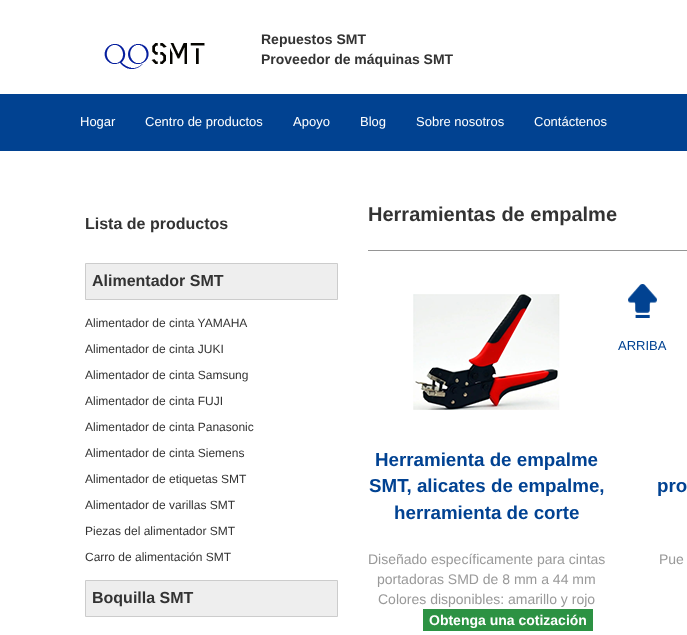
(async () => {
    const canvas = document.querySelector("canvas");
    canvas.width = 687;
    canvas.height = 635;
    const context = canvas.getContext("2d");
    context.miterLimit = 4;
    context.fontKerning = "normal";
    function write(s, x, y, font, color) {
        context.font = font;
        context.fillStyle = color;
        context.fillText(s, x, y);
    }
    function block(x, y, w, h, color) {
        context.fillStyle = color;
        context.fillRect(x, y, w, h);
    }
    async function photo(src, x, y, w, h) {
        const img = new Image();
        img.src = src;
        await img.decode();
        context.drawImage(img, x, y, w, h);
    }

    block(0, 0, 687, 635, "rgb(255, 255, 255)");
    block(0, 94, 687, 57, "rgb(1, 66, 145)");
    await photo("media/1.png", 104, 43, 101, 26);
    write("Repuestos SMT", 261, 44, "bold 14px Liberation Sans", "rgb(51, 51, 51)");
    write("Proveedor de máquinas SMT", 261, 64, "bold 14px Liberation Sans", "rgb(51, 51, 51)");
    write("Hogar", 80, 126, "13px Liberation Sans", "rgb(255, 255, 255)");
    write("Centro de productos", 145, 126, "13px Liberation Sans", "rgb(255, 255, 255)");
    write("Apoyo", 293, 126, "13px Liberation Sans", "rgb(255, 255, 255)");
    write("Blog", 360, 126, "13px Liberation Sans", "rgb(255, 255, 255)");
    write("Sobre nosotros", 416, 126, "13px Liberation Sans", "rgb(255, 255, 255)");
    write("Contáctenos", 534, 126, "13px Liberation Sans", "rgb(255, 255, 255)");
    write("Lista de productos", 85, 229, "bold 16px Liberation Sans", "rgb(51, 51, 51)");
    context.fillStyle = "rgb(238, 238, 238)";
    context.beginPath();
    context.rect(85.5, 263.5, 252, 36);
    context.fill();
    context.strokeStyle = "rgb(204, 204, 204)";
    context.stroke();
    write("Alimentador SMT", 92, 286, "bold 16px Liberation Sans", "rgb(51, 51, 51)");
    write("Alimentador de cinta YAMAHA", 85, 327, "12px Liberation Sans", "rgb(51, 51, 51)");
    write("Alimentador de cinta JUKI", 85, 353, "12px Liberation Sans", "rgb(51, 51, 51)");
    write("Alimentador de cinta Samsung", 85, 379, "12px Liberation Sans", "rgb(51, 51, 51)");
    write("Alimentador de cinta FUJI", 85, 405, "12px Liberation Sans", "rgb(51, 51, 51)");
    write("Alimentador de cinta Panasonic", 85, 431, "12px Liberation Sans", "rgb(51, 51, 51)");
    write("Alimentador de cinta Siemens", 85, 457, "12px Liberation Sans", "rgb(51, 51, 51)");
    write("Alimentador de etiquetas SMT", 85, 483, "12px Liberation Sans", "rgb(51, 51, 51)");
    write("Alimentador de varillas SMT", 85, 509, "12px Liberation Sans", "rgb(51, 51, 51)");
    write("Piezas del alimentador SMT", 85, 535, "12px Liberation Sans", "rgb(51, 51, 51)");
    write("Carro de alimentación SMT", 85, 561, "12px Liberation Sans", "rgb(51, 51, 51)");
    context.fillStyle = "rgb(238, 238, 238)";
    context.beginPath();
    context.rect(85.5, 580.5, 252, 36);
    context.fill();
    context.stroke();
    write("Boquilla SMT", 92, 603, "bold 16px Liberation Sans", "rgb(51, 51, 51)");
    write("Herramientas de empalme", 368, 221, "bold 20px Liberation Sans", "rgb(51, 51, 51)");
    block(368, 250, 319, 1, "rgb(149, 149, 149)");
    await photo("media/2.png", 413, 294, 147, 116);
    write("Herramienta de empalme", 375, 466, "bold 18.75px Liberation Sans", "rgb(1, 66, 146)");
    write("SMT, alicates de empalme,", 369, 492, "bold 18.75px Liberation Sans", "rgb(1, 66, 146)");
    write("herramienta de corte", 394, 519, "bold 18.75px Liberation Sans", "rgb(1, 66, 146)");
    write("Diseñado específicamente para cintas", 368, 564, "14px Liberation Sans", "rgb(153, 153, 153)");
    write("portadoras SMD de 8 mm a 44 mm", 377, 584, "14px Liberation Sans", "rgb(153, 153, 153)");
    write("Colores disponibles: amarillo y rojo", 378, 604, "14px Liberation Sans", "rgb(153, 153, 153)");
    block(423, 609, 170, 22, "rgb(44, 146, 67)");
    write("Obtenga una cotización", 429, 625, "bold 14px Liberation Sans", "rgb(255, 255, 255)");
    write("pro", 657, 492, "bold 18.75px Liberation Sans", "rgb(1, 66, 146)");
    write("Pue", 659, 564, "14px Liberation Sans", "rgb(153, 153, 153)");
    await photo("media/3.png", 628, 284, 29, 34);
    write("ARRIBA", 618, 350, "13px Liberation Sans", "rgb(1, 66, 146)");
})();
